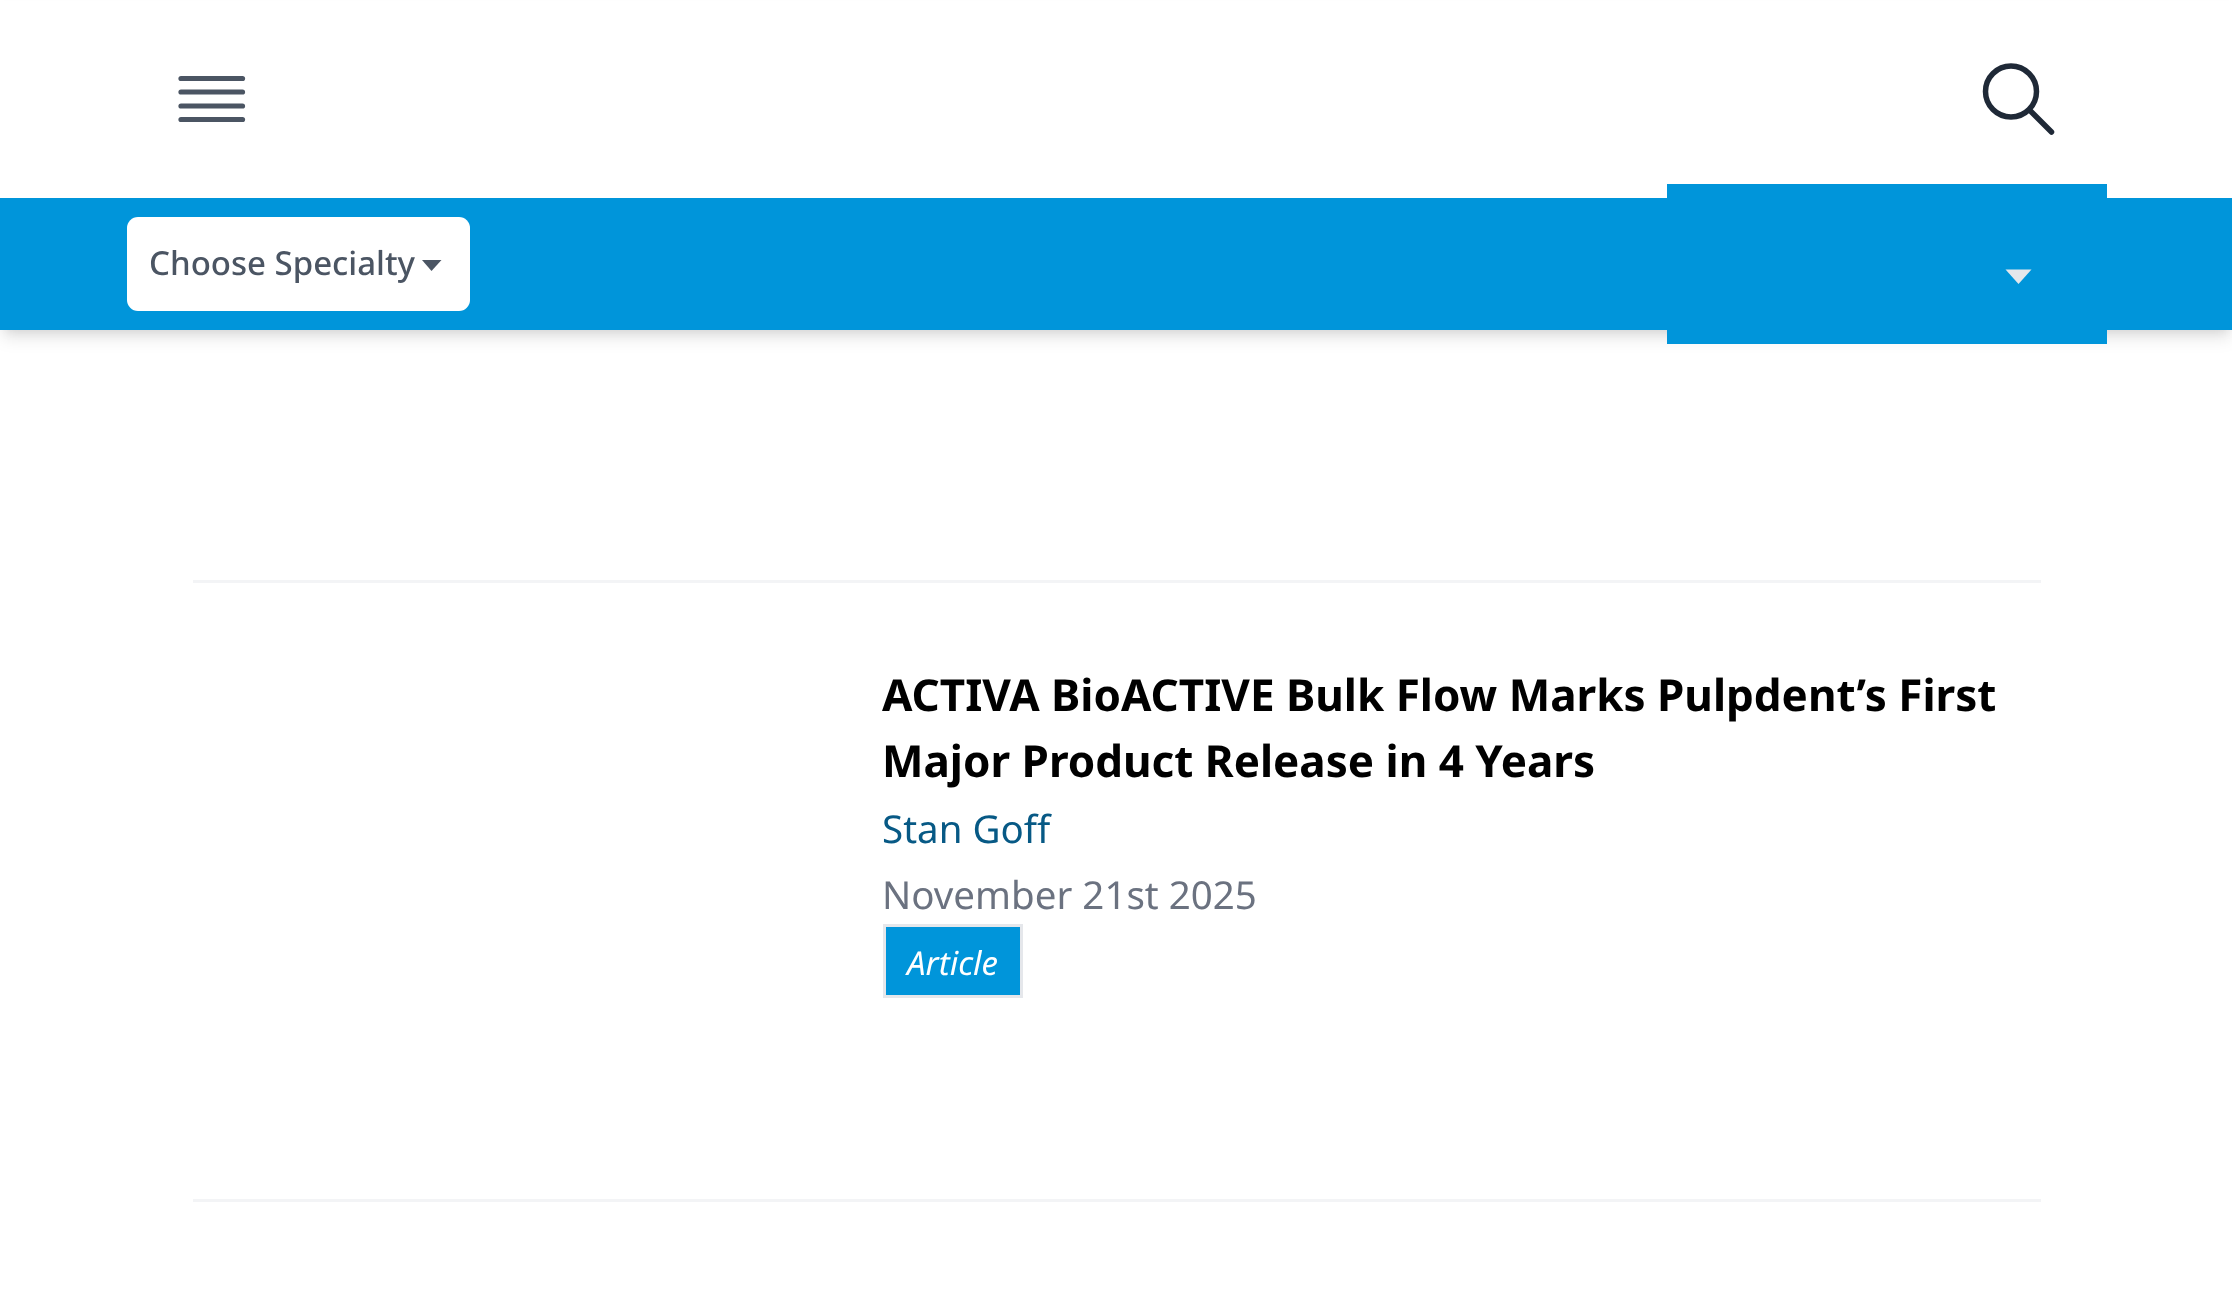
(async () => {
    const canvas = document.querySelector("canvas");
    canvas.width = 2232;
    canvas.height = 1290;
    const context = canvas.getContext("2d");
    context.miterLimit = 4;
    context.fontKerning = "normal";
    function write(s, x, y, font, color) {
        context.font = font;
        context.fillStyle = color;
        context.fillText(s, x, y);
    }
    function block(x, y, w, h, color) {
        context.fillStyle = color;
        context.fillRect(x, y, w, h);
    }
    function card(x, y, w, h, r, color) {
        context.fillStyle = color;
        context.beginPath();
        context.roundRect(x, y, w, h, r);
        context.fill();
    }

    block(0, 0, 2232, 1290, "rgb(255, 255, 255)");
    context.fillStyle = "rgba(0, 0, 0, 0.1)";
    context.filter = "blur(5.5px)";
    context.beginPath();
    context.rect(6, 11, 2222, 319);
    context.fill();
    context.filter = "none";
    context.filter = "blur(8px)";
    context.beginPath();
    context.rect(3, 14, 2227, 324);
    context.fill();
    context.filter = "none";
    block(0, 1, 2232, 197, "rgb(255, 255, 255)");
    context.beginPath();
    context.moveTo(242.5, 92);
    context.lineTo(181, 92);
    context.strokeStyle = "rgb(75, 85, 99)";
    context.lineWidth = 5.2;
    context.lineCap = "round";
    context.lineJoin = "round";
    context.stroke();
    context.beginPath();
    context.moveTo(242.5, 78.5);
    context.lineTo(181, 78.5);
    context.stroke();
    context.beginPath();
    context.moveTo(242.5, 106);
    context.lineTo(181, 106);
    context.stroke();
    context.beginPath();
    context.moveTo(242.5, 119.5);
    context.lineTo(181, 119.5);
    context.stroke();
    context.beginPath();
    context.arc(2011, 91.5, 25.5, 0, Math.PI * 2);
    context.strokeStyle = "rgb(31, 41, 55)";
    context.lineWidth = 5.5;
    context.stroke();
    context.beginPath();
    context.moveTo(2051.5, 132);
    context.lineTo(2029.5, 110);
    context.stroke();
    block(0, 198, 2232, 132, "rgb(0, 149, 218)");
    card(127, 217, 343, 94, 11, "rgb(255, 255, 255)");
    write("Choose Specialty", 149, 275, "500 33px Noto Sans", "rgb(75, 85, 99)");
    context.beginPath();
    context.moveTo(431.5, 271);
    context.lineTo(441.5, 260);
    context.lineTo(422, 260);
    context.closePath();
    context.fill();
    block(1667, 184, 440, 160, "rgb(0, 149, 218)");
    context.fillStyle = "rgb(229, 231, 235)";
    context.beginPath();
    context.moveTo(2018.5, 284);
    context.lineTo(2031.5, 269.5);
    context.lineTo(2005.5, 269.5);
    context.closePath();
    context.fill();
    block(193, 580, 1848, 3, "rgb(243, 244, 246)");
    write("ACTIVA BioACTIVE Bulk Flow Marks Pulpdent’s First", 882, 711, "bold 44px Noto Sans", "rgb(0, 0, 0)");
    write("Major Product Release in 4 Years", 882, 777, "bold 44px Noto Sans", "rgb(0, 0, 0)");
    write("Stan Goff", 882, 843, "38.5px Noto Sans", "rgb(7, 89, 133)");
    write("November 21st 2025", 882, 909, "38.5px Noto Sans", "rgb(107, 114, 128)");
    context.fillStyle = "rgb(0, 149, 218)";
    context.beginPath();
    context.rect(884.5, 925.5, 137, 71);
    context.fill();
    context.strokeStyle = "rgb(229, 231, 235)";
    context.lineWidth = 3;
    context.lineJoin = "miter";
    context.stroke();
    write("Article", 907, 975, "italic 33px Noto Sans", "rgb(255, 255, 255)");
    block(193, 1199, 1848, 3, "rgb(243, 244, 246)");
})();
